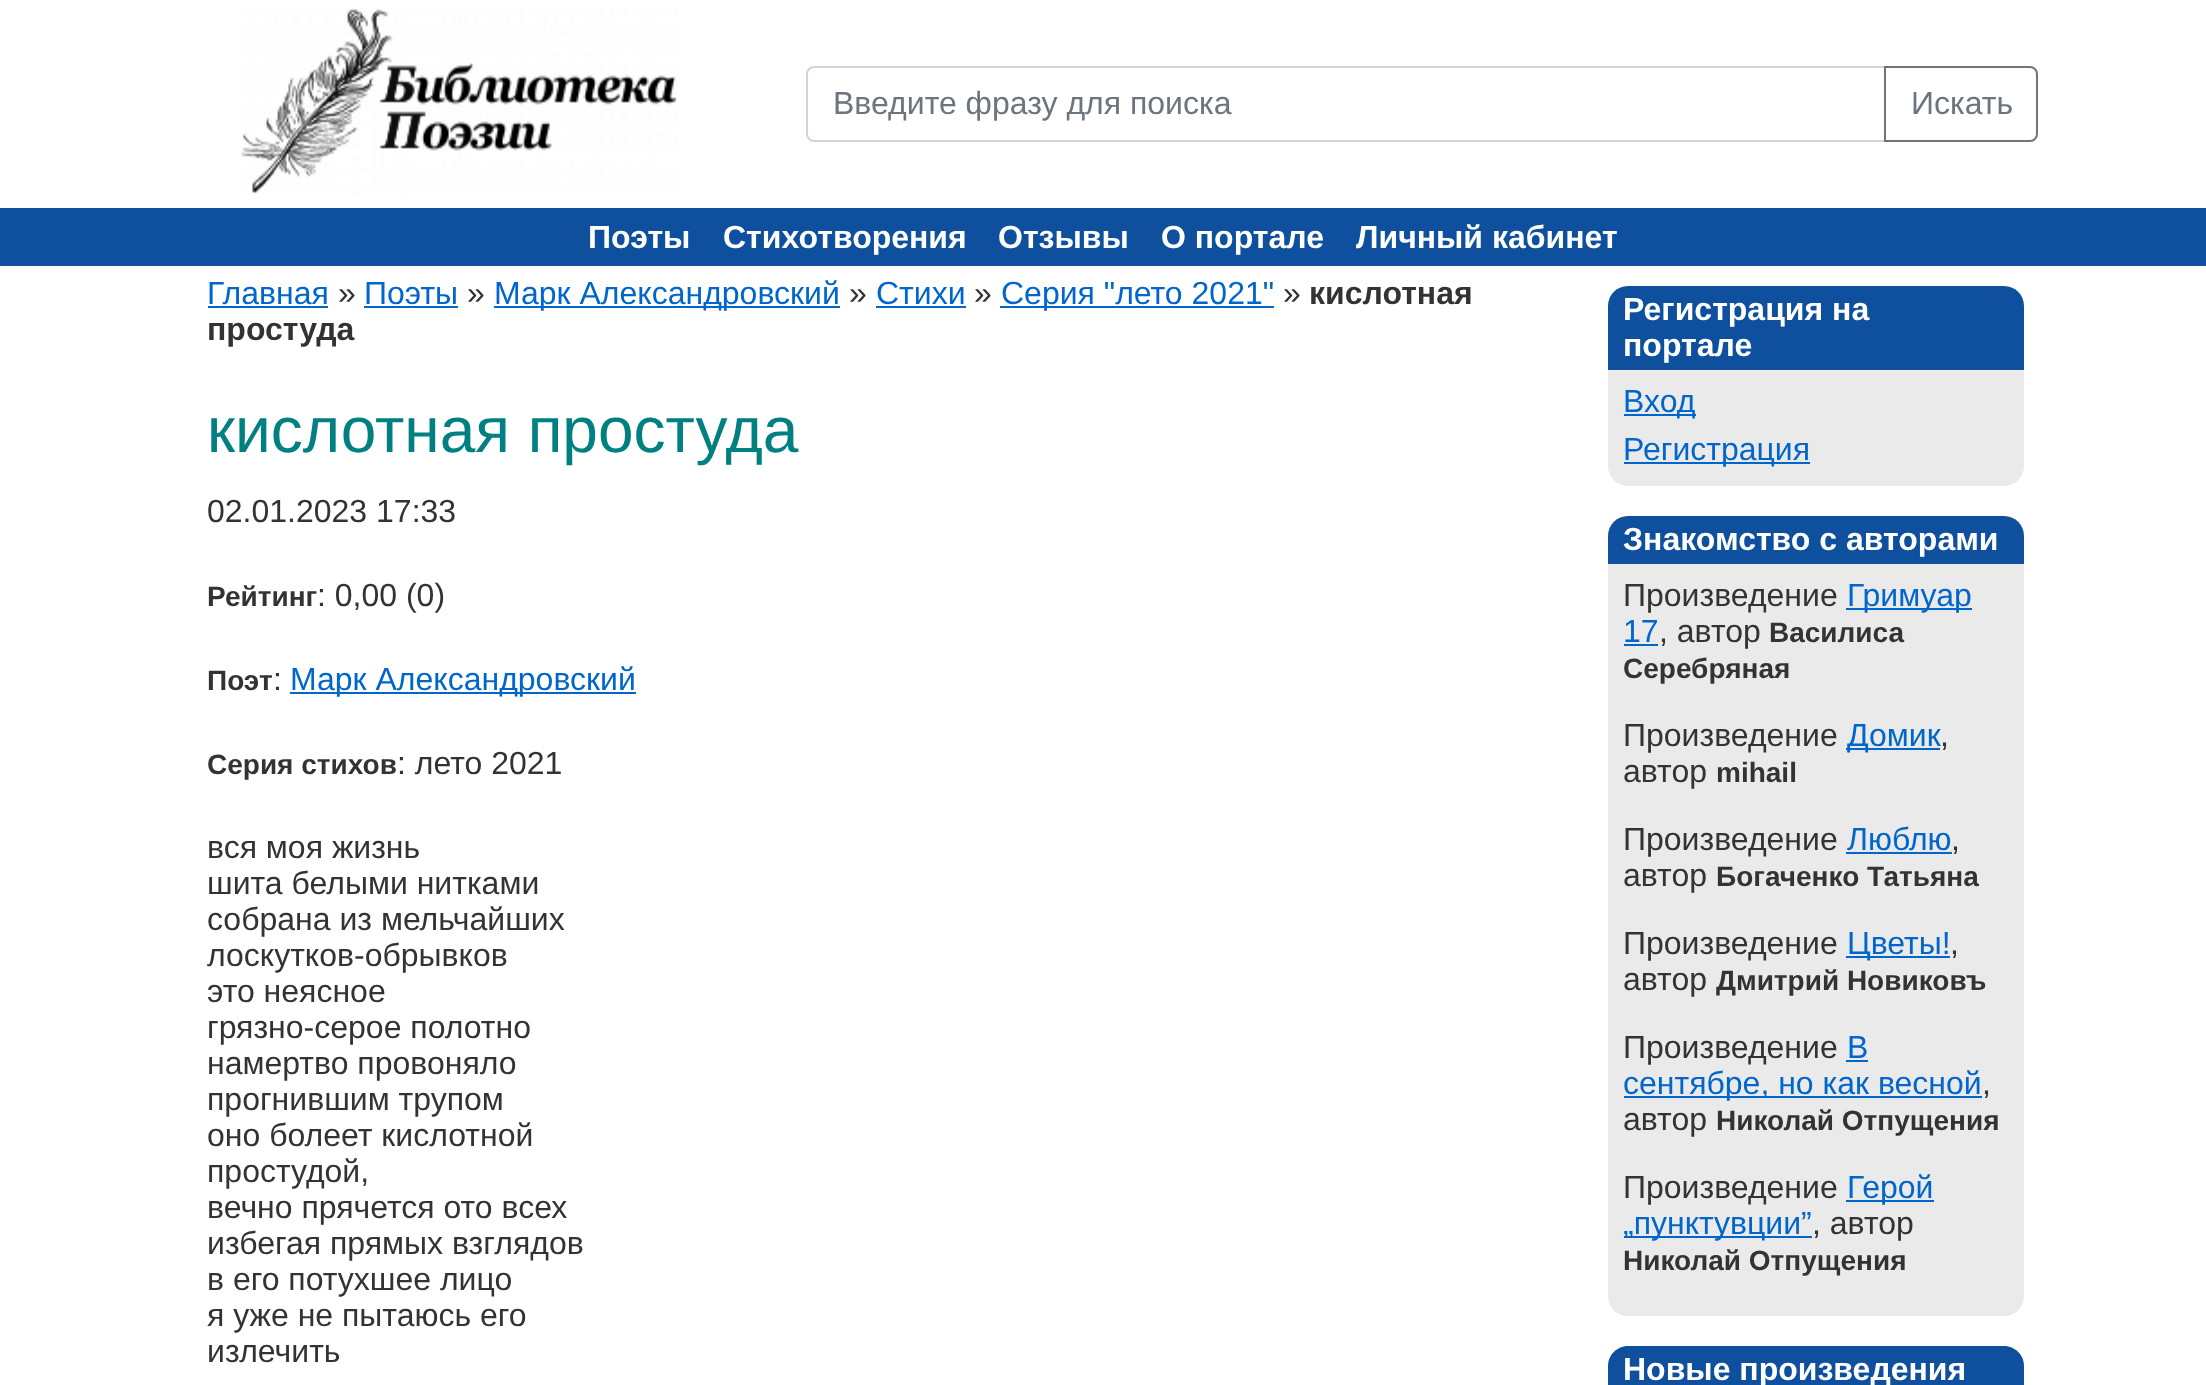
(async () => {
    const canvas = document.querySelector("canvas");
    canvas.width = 2206;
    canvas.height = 1385;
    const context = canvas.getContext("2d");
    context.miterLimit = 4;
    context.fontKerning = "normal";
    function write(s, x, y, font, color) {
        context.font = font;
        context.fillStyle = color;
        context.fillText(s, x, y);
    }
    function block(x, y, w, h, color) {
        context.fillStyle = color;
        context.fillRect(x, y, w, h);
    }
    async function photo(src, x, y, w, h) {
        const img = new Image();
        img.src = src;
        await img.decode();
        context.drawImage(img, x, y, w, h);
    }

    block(0, 0, 2206, 1385, "rgb(255, 255, 255)");
    await photo("media/1.png", 241, 8, 437, 186);
    context.beginPath();
    context.roundRect(807, 67, 1078, 74, [7, 0, 0, 7]);
    context.strokeStyle = "rgb(206, 212, 218)";
    context.lineWidth = 2;
    context.stroke();
    write("Введите фразу для поиска", 833, 114, "32px Liberation Sans", "rgb(108, 117, 125)");
    context.beginPath();
    context.roundRect(1885, 67, 152, 74, [0, 7, 7, 0]);
    context.strokeStyle = "rgb(108, 117, 125)";
    context.stroke();
    write("Искать", 1911, 114, "32px Liberation Sans", "rgb(108, 117, 125)");
    block(0, 208, 2206, 58, "rgb(14, 80, 158)");
    write("Поэты", 588, 248, "bold 32px Liberation Sans", "rgb(255, 255, 255)");
    write("Стихотворения", 723, 248, "bold 32px Liberation Sans", "rgb(255, 255, 255)");
    write("Отзывы", 998, 248, "bold 32px Liberation Sans", "rgb(255, 255, 255)");
    write("О портале", 1161, 248, "bold 32px Liberation Sans", "rgb(255, 255, 255)");
    write("Личный кабинет", 1356, 248, "bold 32px Liberation Sans", "rgb(255, 255, 255)");
    write("Главная", 207, 304, "32px Liberation Sans", "rgb(0, 102, 204)");
    block(208, 306, 120, 2, "rgb(0, 102, 204)");
    write("»", 338, 304, "32px Liberation Sans", "rgb(51, 51, 51)");
    write("Поэты", 364, 304, "32px Liberation Sans", "rgb(0, 102, 204)");
    block(364, 306, 94, 2, "rgb(0, 102, 204)");
    write("»", 467, 304, "32px Liberation Sans", "rgb(51, 51, 51)");
    block(494, 306, 346, 2, "rgb(0, 102, 204)");
    write("Марк Александровский", 494, 304, "32px Liberation Sans", "rgb(0, 102, 204)");
    write("»", 849, 304, "32px Liberation Sans", "rgb(51, 51, 51)");
    write("Стихи", 876, 304, "32px Liberation Sans", "rgb(0, 102, 204)");
    block(876, 306, 90, 2, "rgb(0, 102, 204)");
    write("»", 974, 304, "32px Liberation Sans", "rgb(51, 51, 51)");
    block(1000, 306, 274, 2, "rgb(0, 102, 204)");
    write("Серия \"лето 2021\"", 1001, 304, "32px Liberation Sans", "rgb(0, 102, 204)");
    write("»", 1283, 304, "32px Liberation Sans", "rgb(51, 51, 51)");
    write("кислотная", 1309, 304, "bold 32px Liberation Sans", "rgb(51, 51, 51)");
    write("простуда", 207, 340, "bold 32px Liberation Sans", "rgb(51, 51, 51)");
    write("кислотная простуда", 207, 452, "64px Liberation Sans", "rgb(0, 128, 128)");
    write("02.01.2023 17:33", 207, 522, "32px Liberation Sans", "rgb(51, 51, 51)");
    write("Рейтинг", 207, 606, "bold 28px Liberation Sans", "rgb(51, 51, 51)");
    write(": 0,00 (0)", 317, 606, "32px Liberation Sans", "rgb(51, 51, 51)");
    write("Поэт", 207, 690, "bold 28px Liberation Sans", "rgb(51, 51, 51)");
    write(":", 273, 690, "32px Liberation Sans", "rgb(51, 51, 51)");
    block(290, 692, 346, 2, "rgb(0, 102, 204)");
    write("Марк Александровский", 290, 690, "32px Liberation Sans", "rgb(0, 102, 204)");
    write("Серия стихов", 207, 774, "bold 28px Liberation Sans", "rgb(51, 51, 51)");
    write(": лето 2021", 397, 774, "32px Liberation Sans", "rgb(51, 51, 51)");
    write("вся моя жизнь", 207, 858, "32px Liberation Sans", "rgb(51, 51, 51)");
    write("шита белыми нитками", 207, 894, "32px Liberation Sans", "rgb(51, 51, 51)");
    write("собрана из мельчайших", 207, 930, "32px Liberation Sans", "rgb(51, 51, 51)");
    write("лоскутков-обрывков", 207, 966, "32px Liberation Sans", "rgb(51, 51, 51)");
    write("это неясное", 207, 1002, "32px Liberation Sans", "rgb(51, 51, 51)");
    write("грязно-серое полотно", 207, 1038, "32px Liberation Sans", "rgb(51, 51, 51)");
    write("намертво провоняло", 207, 1074, "32px Liberation Sans", "rgb(51, 51, 51)");
    write("прогнившим трупом", 207, 1110, "32px Liberation Sans", "rgb(51, 51, 51)");
    write("оно болеет кислотной", 207, 1146, "32px Liberation Sans", "rgb(51, 51, 51)");
    write("простудой,", 207, 1182, "32px Liberation Sans", "rgb(51, 51, 51)");
    write("вечно прячется ото всех", 207, 1218, "32px Liberation Sans", "rgb(51, 51, 51)");
    write("избегая прямых взглядов", 207, 1254, "32px Liberation Sans", "rgb(51, 51, 51)");
    write("в его потухшее лицо", 207, 1290, "32px Liberation Sans", "rgb(51, 51, 51)");
    write("я уже не пытаюсь его", 207, 1326, "32px Liberation Sans", "rgb(51, 51, 51)");
    write("излечить", 207, 1362, "32px Liberation Sans", "rgb(51, 51, 51)");
    context.fillStyle = "rgb(14, 80, 158)";
    context.beginPath();
    context.roundRect(1608, 286, 416, 84, [20, 20, 0, 0]);
    context.fill();
    write("Регистрация на", 1623, 320, "bold 32px Liberation Sans", "rgb(255, 255, 255)");
    write("портале", 1623, 356, "bold 32px Liberation Sans", "rgb(255, 255, 255)");
    context.fillStyle = "rgb(234, 234, 234)";
    context.beginPath();
    context.roundRect(1608, 370, 416, 116, [0, 0, 20, 20]);
    context.fill();
    block(1624, 414, 72, 2, "rgb(0, 102, 204)");
    write("Вход", 1623, 412, "32px Liberation Sans", "rgb(0, 102, 204)");
    block(1624, 462, 186, 2, "rgb(0, 102, 204)");
    write("Регистрация", 1623, 460, "32px Liberation Sans", "rgb(0, 102, 204)");
    context.fillStyle = "rgb(14, 80, 158)";
    context.beginPath();
    context.roundRect(1608, 516, 416, 48, [20, 20, 0, 0]);
    context.fill();
    write("Знакомство с авторами", 1623, 550, "bold 32px Liberation Sans", "rgb(255, 255, 255)");
    context.fillStyle = "rgb(234, 234, 234)";
    context.beginPath();
    context.roundRect(1608, 564, 416, 752, [0, 0, 20, 20]);
    context.fill();
    write("Произведение", 1623, 606, "32px Liberation Sans", "rgb(51, 51, 51)");
    block(1846, 608, 126, 2, "rgb(0, 102, 204)");
    write("Гримуар", 1847, 606, "32px Liberation Sans", "rgb(0, 102, 204)");
    write("17", 1623, 642, "32px Liberation Sans", "rgb(0, 102, 204)");
    block(1624, 644, 34, 2, "rgb(0, 102, 204)");
    write(", автор", 1659, 642, "32px Liberation Sans", "rgb(51, 51, 51)");
    write("Василиса", 1769, 642, "bold 28px Liberation Sans", "rgb(51, 51, 51)");
    write("Серебряная", 1623, 678, "bold 28px Liberation Sans", "rgb(51, 51, 51)");
    write("Произведение", 1623, 746, "32px Liberation Sans", "rgb(51, 51, 51)");
    block(1846, 748, 94, 2, "rgb(0, 102, 204)");
    write("Домик", 1847, 746, "32px Liberation Sans", "rgb(0, 102, 204)");
    write(",", 1940, 746, "32px Liberation Sans", "rgb(51, 51, 51)");
    write("автор", 1623, 782, "32px Liberation Sans", "rgb(51, 51, 51)");
    write("mihail", 1716, 782, "bold 28px Liberation Sans", "rgb(51, 51, 51)");
    write("Произведение", 1623, 850, "32px Liberation Sans", "rgb(51, 51, 51)");
    write("Люблю", 1847, 850, "32px Liberation Sans", "rgb(0, 102, 204)");
    block(1846, 852, 106, 2, "rgb(0, 102, 204)");
    write(",", 1951, 850, "32px Liberation Sans", "rgb(51, 51, 51)");
    write("автор", 1623, 886, "32px Liberation Sans", "rgb(51, 51, 51)");
    write("Богаченко Татьяна", 1716, 886, "bold 28px Liberation Sans", "rgb(51, 51, 51)");
    write("Произведение", 1623, 954, "32px Liberation Sans", "rgb(51, 51, 51)");
    block(1846, 956, 104, 2, "rgb(0, 102, 204)");
    write("Цветы!", 1847, 954, "32px Liberation Sans", "rgb(0, 102, 204)");
    write(",", 1950, 954, "32px Liberation Sans", "rgb(51, 51, 51)");
    write("автор", 1623, 990, "32px Liberation Sans", "rgb(51, 51, 51)");
    write("Дмитрий Новиковъ", 1716, 990, "bold 28px Liberation Sans", "rgb(51, 51, 51)");
    write("Произведение", 1623, 1058, "32px Liberation Sans", "rgb(51, 51, 51)");
    write("В", 1847, 1058, "32px Liberation Sans", "rgb(0, 102, 204)");
    block(1846, 1060, 22, 2, "rgb(0, 102, 204)");
    block(1624, 1096, 358, 2, "rgb(0, 102, 204)");
    write("сентябре, но как весной", 1623, 1094, "32px Liberation Sans", "rgb(0, 102, 204)");
    write(",", 1982, 1094, "32px Liberation Sans", "rgb(51, 51, 51)");
    write("автор", 1623, 1130, "32px Liberation Sans", "rgb(51, 51, 51)");
    write("Николай Отпущения", 1716, 1130, "bold 28px Liberation Sans", "rgb(51, 51, 51)");
    write("Произведение", 1623, 1198, "32px Liberation Sans", "rgb(51, 51, 51)");
    block(1846, 1200, 88, 2, "rgb(0, 102, 204)");
    write("Герой", 1847, 1198, "32px Liberation Sans", "rgb(0, 102, 204)");
    block(1624, 1236, 188, 2, "rgb(0, 102, 204)");
    write("„пунктувции”", 1623, 1234, "32px Liberation Sans", "rgb(0, 102, 204)");
    write(", автор", 1812, 1234, "32px Liberation Sans", "rgb(51, 51, 51)");
    write("Николай Отпущения", 1623, 1270, "bold 28px Liberation Sans", "rgb(51, 51, 51)");
    context.fillStyle = "rgb(14, 80, 158)";
    context.beginPath();
    context.moveTo(1628, 1346);
    context.lineTo(2004, 1346);
    context.bezierCurveTo(2015, 1346, 2024, 1355, 2024, 1366);
    context.lineTo(2024, 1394);
    context.lineTo(1608, 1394);
    context.lineTo(1608, 1366);
    context.bezierCurveTo(1608, 1355, 1617, 1346, 1628, 1346);
    context.closePath();
    context.fill();
    write("Новые произведения", 1623, 1380, "bold 32px Liberation Sans", "rgb(255, 255, 255)");
})();
